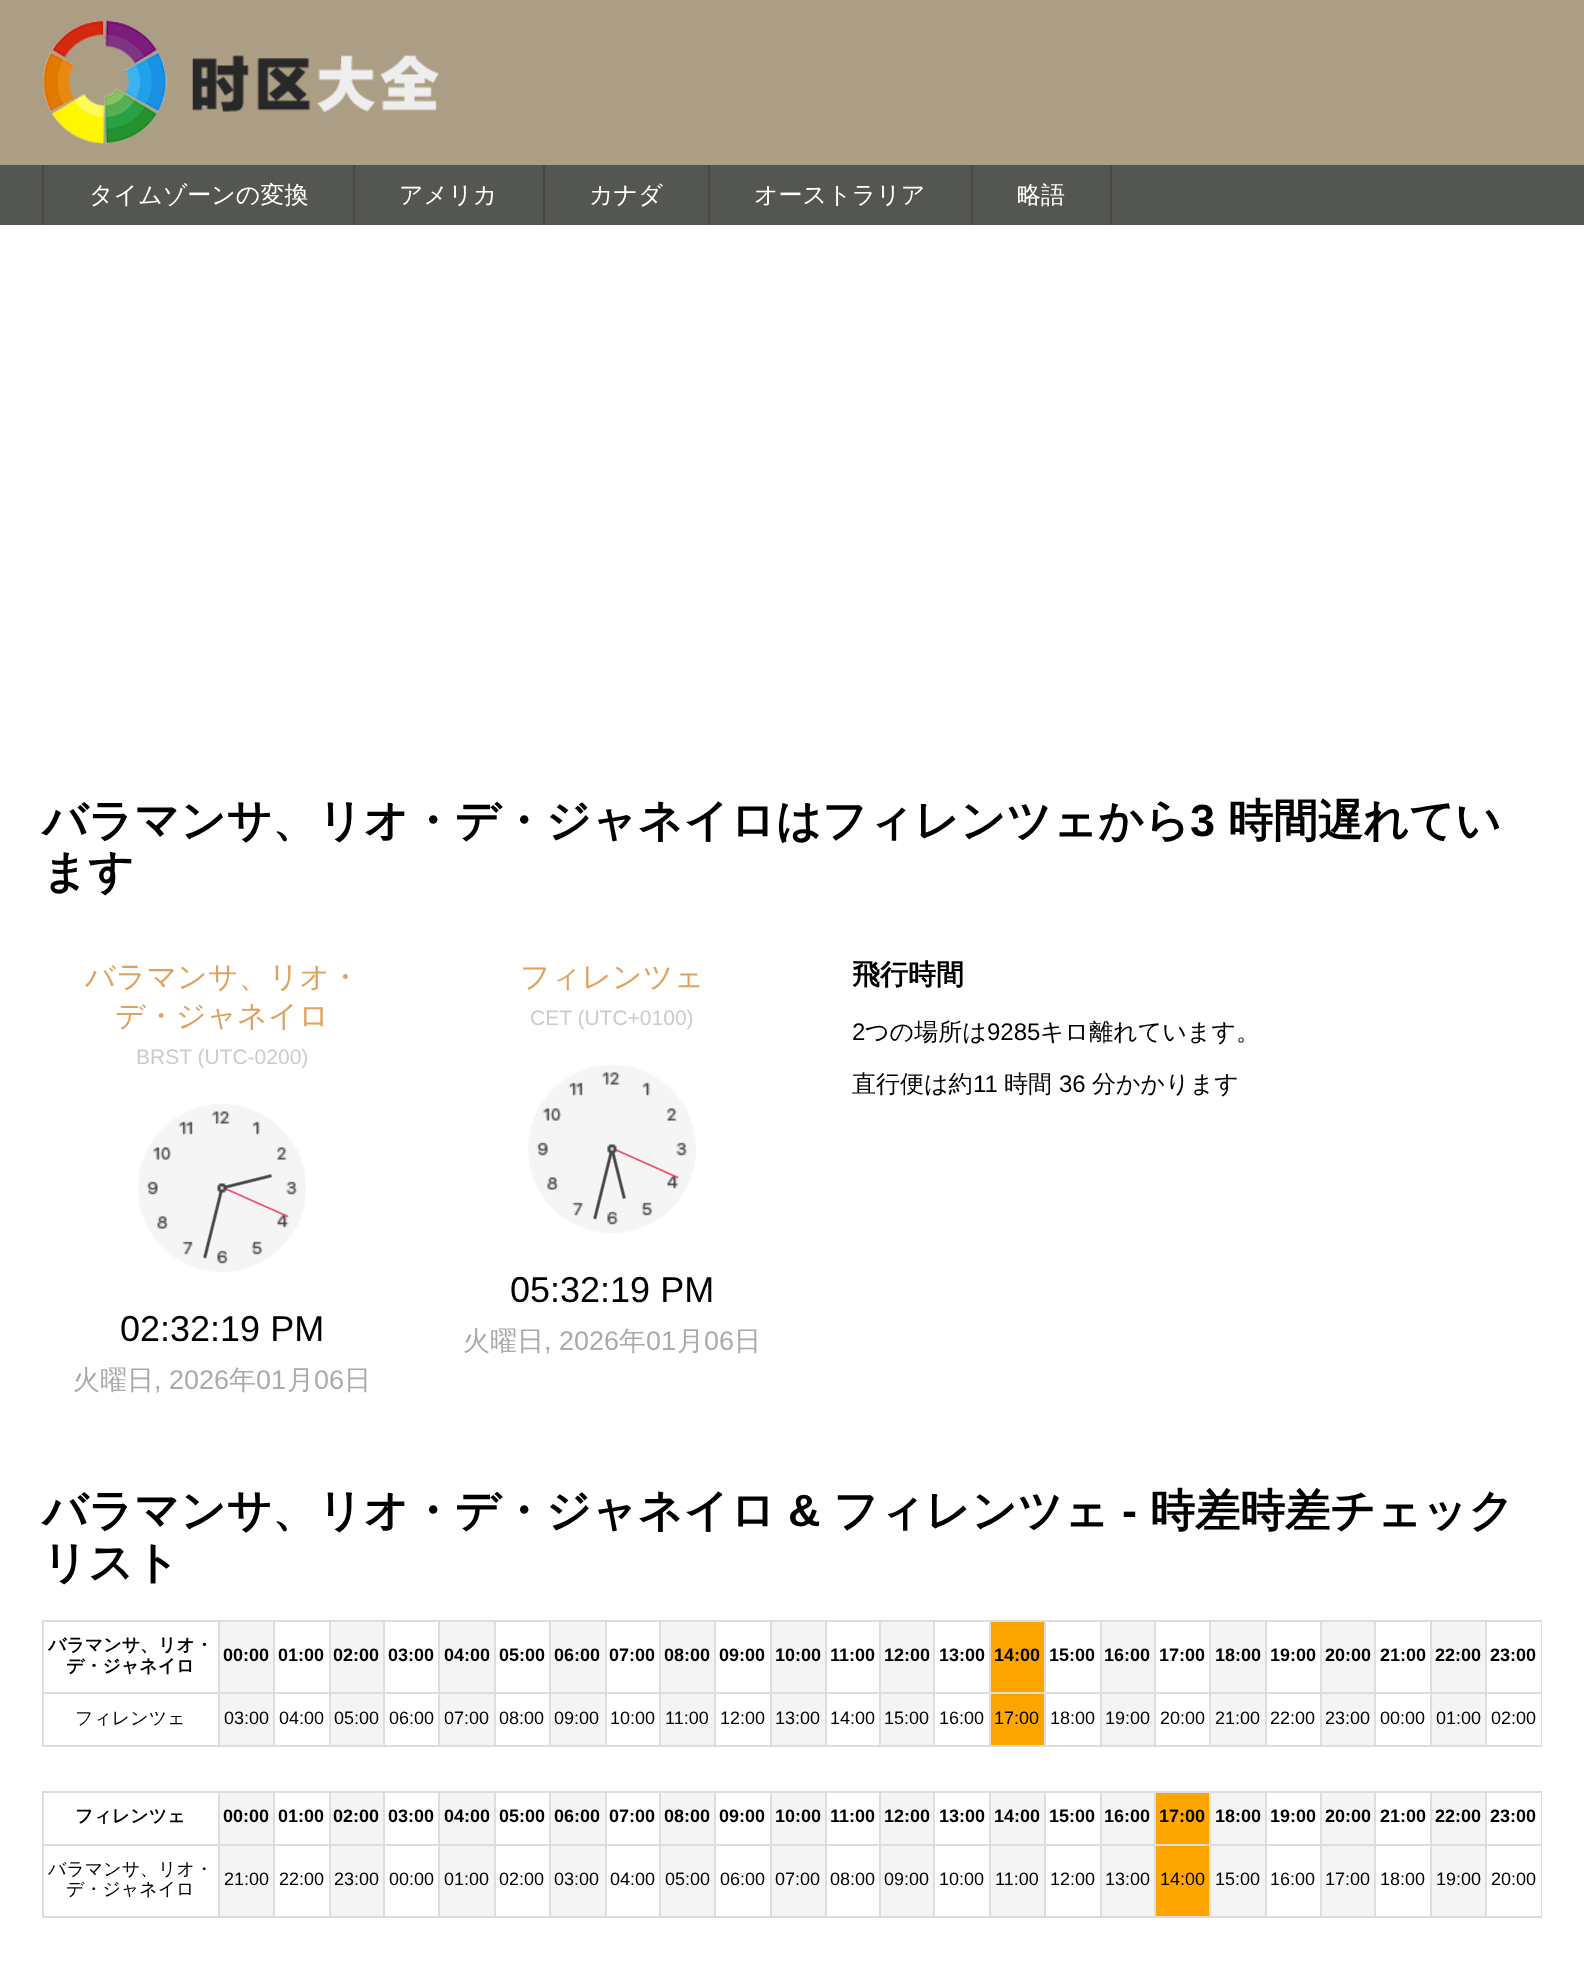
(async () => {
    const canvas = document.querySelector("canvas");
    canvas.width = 1584;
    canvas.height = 1968;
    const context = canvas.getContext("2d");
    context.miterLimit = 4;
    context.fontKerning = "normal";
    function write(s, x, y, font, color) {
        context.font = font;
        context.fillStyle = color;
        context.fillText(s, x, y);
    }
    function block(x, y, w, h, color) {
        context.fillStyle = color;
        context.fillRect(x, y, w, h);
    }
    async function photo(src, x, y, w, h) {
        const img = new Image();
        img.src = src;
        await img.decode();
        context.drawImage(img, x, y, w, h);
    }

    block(0, 0, 1584, 1968, "rgb(255, 255, 255)");
    block(0, 0, 1584, 165, "rgb(172, 158, 132)");
    await photo("media/1.png", 43, 20, 396, 124);
    block(0, 165, 1584, 60, "rgb(84, 86, 82)");
    block(353, 165, 2, 60, "rgb(73, 71, 71)");
    block(42, 165, 2, 60, "rgb(73, 71, 71)");
    write("タイムゾーンの変換", 89, 203, "500 24px WenQuanYi Zen Hei", "rgb(255, 255, 255)");
    block(543, 165, 2, 60, "rgb(73, 71, 71)");
    write("アメリカ", 399, 203, "500 24px WenQuanYi Zen Hei", "rgb(255, 255, 255)");
    block(708, 165, 2, 60, "rgb(73, 71, 71)");
    write("カナダ", 589, 203, "500 24px WenQuanYi Zen Hei", "rgb(255, 255, 255)");
    block(971, 165, 2, 60, "rgb(73, 71, 71)");
    write("オーストラリア", 754, 203, "500 24px WenQuanYi Zen Hei", "rgb(255, 255, 255)");
    block(1110, 165, 2, 60, "rgb(73, 71, 71)");
    write("略語", 1017, 203, "500 24px WenQuanYi Zen Hei", "rgb(255, 255, 255)");
    write("バラマンサ、リオ・デ・ジャネイロはフィレンツェから", 42, 836, "bold 45px WenQuanYi Zen Hei", "rgb(0, 0, 0)");
    write("3", 1190, 836, "bold 45px Liberation Sans", "rgb(0, 0, 0)");
    write("時間遅れてい", 1228, 836, "bold 45px WenQuanYi Zen Hei", "rgb(0, 0, 0)");
    write("ます", 42, 887, "bold 45px WenQuanYi Zen Hei", "rgb(0, 0, 0)");
    write("バラマンサ、リオ・", 85, 987, "500 30px WenQuanYi Zen Hei", "rgb(224, 163, 95)");
    write("デ・ジャネイロ", 115, 1026, "500 30px WenQuanYi Zen Hei", "rgb(224, 163, 95)");
    write("BRST (UTC-0200)", 136, 1064, "21px Liberation Sans", "rgb(204, 204, 204)");
    await photo("media/2.png", 138, 1104, 168, 168);
    await photo("media/3.png", 219, 1174, 53, 17);
    await photo("media/5.png", 203, 1185, 22, 74);
    await photo("media/6.png", 219, 1185, 70, 33);
    await photo("media/4.png", 217, 1183, 10, 10);
    write("02:32:19 PM", 120, 1341, "36px Liberation Sans", "rgb(0, 0, 0)");
    write("火曜日", 73, 1389, "500 27px WenQuanYi Zen Hei", "rgb(170, 170, 170)");
    write(", 2026", 154, 1389, "27px Liberation Sans", "rgb(170, 170, 170)");
    write("年", 229, 1389, "500 27px WenQuanYi Zen Hei", "rgb(170, 170, 170)");
    write("01", 256, 1389, "27px Liberation Sans", "rgb(170, 170, 170)");
    write("月", 287, 1389, "500 27px WenQuanYi Zen Hei", "rgb(170, 170, 170)");
    write("06", 314, 1389, "27px Liberation Sans", "rgb(170, 170, 170)");
    write("日", 344, 1389, "500 27px WenQuanYi Zen Hei", "rgb(170, 170, 170)");
    write("フィレンツェ", 520, 987, "500 30px WenQuanYi Zen Hei", "rgb(224, 163, 95)");
    write("CET (UTC+0100)", 530, 1025, "21px Liberation Sans", "rgb(204, 204, 204)");
    await photo("media/7.png", 528, 1065, 168, 168);
    await photo("media/10.png", 609, 1146, 17, 53);
    await photo("media/9.png", 593, 1146, 22, 74);
    await photo("media/11.png", 609, 1146, 70, 33);
    await photo("media/8.png", 607, 1144, 10, 10);
    write("05:32:19 PM", 510, 1302, "36px Liberation Sans", "rgb(0, 0, 0)");
    write("火曜日", 463, 1350, "500 27px WenQuanYi Zen Hei", "rgb(170, 170, 170)");
    write(", 2026", 544, 1350, "27px Liberation Sans", "rgb(170, 170, 170)");
    write("年", 619, 1350, "500 27px WenQuanYi Zen Hei", "rgb(170, 170, 170)");
    write("01", 646, 1350, "27px Liberation Sans", "rgb(170, 170, 170)");
    write("月", 677, 1350, "500 27px WenQuanYi Zen Hei", "rgb(170, 170, 170)");
    write("06", 704, 1350, "27px Liberation Sans", "rgb(170, 170, 170)");
    write("日", 734, 1350, "500 27px WenQuanYi Zen Hei", "rgb(170, 170, 170)");
    write("飛行時間", 852, 984, "bold 28px WenQuanYi Zen Hei", "rgb(0, 0, 0)");
    write("2", 852, 1040, "24px Liberation Sans", "rgb(0, 0, 0)");
    write("つの場所は", 865, 1040, "500 24px WenQuanYi Zen Hei", "rgb(0, 0, 0)");
    write("9285", 987, 1040, "24px Liberation Sans", "rgb(0, 0, 0)");
    write("キロ離れています。", 1040, 1040, "500 24px WenQuanYi Zen Hei", "rgb(0, 0, 0)");
    write("直行便は約", 852, 1092, "500 24px WenQuanYi Zen Hei", "rgb(0, 0, 0)");
    write("11", 973, 1092, "24px Liberation Sans", "rgb(0, 0, 0)");
    write("時間", 1004, 1092, "500 24px WenQuanYi Zen Hei", "rgb(0, 0, 0)");
    write("36", 1059, 1092, "24px Liberation Sans", "rgb(0, 0, 0)");
    write("分かかります", 1092, 1092, "500 24px WenQuanYi Zen Hei", "rgb(0, 0, 0)");
    write("バラマンサ、リオ・デ・ジャネイロ", 42, 1526, "bold 45px WenQuanYi Zen Hei", "rgb(0, 0, 0)");
    write("&", 788, 1526, "bold 45px Liberation Sans", "rgb(0, 0, 0)");
    write("フィレンツェ", 833, 1526, "bold 45px WenQuanYi Zen Hei", "rgb(0, 0, 0)");
    write("-", 1122, 1526, "bold 45px Liberation Sans", "rgb(0, 0, 0)");
    write("時差時差チェック", 1150, 1526, "bold 45px WenQuanYi Zen Hei", "rgb(0, 0, 0)");
    write("リスト", 42, 1578, "bold 45px WenQuanYi Zen Hei", "rgb(0, 0, 0)");
    block(42, 1620, 1500, 2, "rgb(221, 221, 221)");
    block(1541, 1620, 1, 126, "rgb(221, 221, 221)");
    block(42, 1745, 1500, 2, "rgb(221, 221, 221)");
    block(42, 1620, 2, 126, "rgb(221, 221, 221)");
    write("バラマンサ、リオ・", 48, 1651, "bold 18px WenQuanYi Zen Hei", "rgb(0, 0, 0)");
    write("デ・ジャネイロ", 66, 1672, "bold 18px WenQuanYi Zen Hei", "rgb(0, 0, 0)");
    block(220, 1622, 53, 70, "rgb(244, 244, 244)");
    block(1485, 1692, 57, 2, "rgb(221, 221, 221)");
    block(1485, 1692, 2, 54, "rgb(221, 221, 221)");
    block(1430, 1692, 57, 2, "rgb(221, 221, 221)");
    block(1430, 1692, 2, 54, "rgb(221, 221, 221)");
    block(1374, 1692, 57, 2, "rgb(221, 221, 221)");
    block(1374, 1692, 2, 54, "rgb(221, 221, 221)");
    block(1320, 1692, 56, 2, "rgb(221, 221, 221)");
    block(1320, 1692, 2, 54, "rgb(221, 221, 221)");
    block(1265, 1692, 57, 2, "rgb(221, 221, 221)");
    block(1265, 1692, 2, 54, "rgb(221, 221, 221)");
    block(1209, 1692, 57, 2, "rgb(221, 221, 221)");
    block(1209, 1692, 2, 54, "rgb(221, 221, 221)");
    block(1154, 1692, 57, 2, "rgb(221, 221, 221)");
    block(1154, 1692, 2, 54, "rgb(221, 221, 221)");
    block(1100, 1692, 55, 2, "rgb(221, 221, 221)");
    block(1100, 1692, 2, 54, "rgb(221, 221, 221)");
    block(1044, 1692, 57, 2, "rgb(221, 221, 221)");
    block(1044, 1692, 2, 54, "rgb(221, 221, 221)");
    block(989, 1692, 57, 2, "rgb(221, 221, 221)");
    block(989, 1692, 2, 54, "rgb(221, 221, 221)");
    block(933, 1692, 57, 2, "rgb(221, 221, 221)");
    block(933, 1692, 2, 54, "rgb(221, 221, 221)");
    block(879, 1692, 56, 2, "rgb(221, 221, 221)");
    block(879, 1692, 2, 54, "rgb(221, 221, 221)");
    block(825, 1692, 56, 2, "rgb(221, 221, 221)");
    block(825, 1692, 2, 54, "rgb(221, 221, 221)");
    block(770, 1692, 57, 2, "rgb(221, 221, 221)");
    block(770, 1692, 2, 54, "rgb(221, 221, 221)");
    block(714, 1692, 57, 2, "rgb(221, 221, 221)");
    block(714, 1692, 2, 54, "rgb(221, 221, 221)");
    block(659, 1692, 57, 2, "rgb(221, 221, 221)");
    block(659, 1692, 2, 54, "rgb(221, 221, 221)");
    block(605, 1692, 55, 2, "rgb(221, 221, 221)");
    block(605, 1692, 2, 54, "rgb(221, 221, 221)");
    block(549, 1692, 57, 2, "rgb(221, 221, 221)");
    block(549, 1692, 2, 54, "rgb(221, 221, 221)");
    block(494, 1692, 57, 2, "rgb(221, 221, 221)");
    block(494, 1692, 2, 54, "rgb(221, 221, 221)");
    block(438, 1692, 57, 2, "rgb(221, 221, 221)");
    block(438, 1692, 2, 54, "rgb(221, 221, 221)");
    block(383, 1692, 57, 2, "rgb(221, 221, 221)");
    block(383, 1692, 2, 54, "rgb(221, 221, 221)");
    block(329, 1692, 55, 2, "rgb(221, 221, 221)");
    block(329, 1692, 2, 54, "rgb(221, 221, 221)");
    block(273, 1692, 57, 2, "rgb(221, 221, 221)");
    block(273, 1692, 2, 54, "rgb(221, 221, 221)");
    block(218, 1692, 57, 2, "rgb(221, 221, 221)");
    block(218, 1692, 2, 54, "rgb(221, 221, 221)");
    block(42, 1692, 177, 2, "rgb(221, 221, 221)");
    block(218, 1620, 2, 74, "rgb(221, 221, 221)");
    write("00:00", 223, 1661, "bold 18px Liberation Sans", "rgb(0, 0, 0)");
    block(273, 1620, 2, 74, "rgb(221, 221, 221)");
    write("01:00", 278, 1661, "bold 18px Liberation Sans", "rgb(0, 0, 0)");
    block(331, 1622, 52, 70, "rgb(244, 244, 244)");
    block(329, 1620, 2, 74, "rgb(221, 221, 221)");
    write("02:00", 333, 1661, "bold 18px Liberation Sans", "rgb(0, 0, 0)");
    block(383, 1620, 2, 74, "rgb(221, 221, 221)");
    write("03:00", 388, 1661, "bold 18px Liberation Sans", "rgb(0, 0, 0)");
    block(440, 1622, 54, 70, "rgb(244, 244, 244)");
    block(438, 1620, 2, 74, "rgb(221, 221, 221)");
    write("04:00", 444, 1661, "bold 18px Liberation Sans", "rgb(0, 0, 0)");
    block(494, 1620, 2, 74, "rgb(221, 221, 221)");
    write("05:00", 499, 1661, "bold 18px Liberation Sans", "rgb(0, 0, 0)");
    block(551, 1622, 54, 70, "rgb(244, 244, 244)");
    block(549, 1620, 2, 74, "rgb(221, 221, 221)");
    write("06:00", 554, 1661, "bold 18px Liberation Sans", "rgb(0, 0, 0)");
    block(605, 1620, 2, 74, "rgb(221, 221, 221)");
    write("07:00", 609, 1661, "bold 18px Liberation Sans", "rgb(0, 0, 0)");
    block(661, 1622, 53, 70, "rgb(244, 244, 244)");
    block(659, 1620, 2, 74, "rgb(221, 221, 221)");
    write("08:00", 664, 1661, "bold 18px Liberation Sans", "rgb(0, 0, 0)");
    block(714, 1620, 2, 74, "rgb(221, 221, 221)");
    write("09:00", 719, 1661, "bold 18px Liberation Sans", "rgb(0, 0, 0)");
    block(772, 1622, 53, 70, "rgb(244, 244, 244)");
    block(770, 1620, 2, 74, "rgb(221, 221, 221)");
    write("10:00", 775, 1661, "bold 18px Liberation Sans", "rgb(0, 0, 0)");
    block(825, 1620, 2, 74, "rgb(221, 221, 221)");
    write("11:00", 830, 1661, "bold 18px Liberation Sans", "rgb(0, 0, 0)");
    block(881, 1622, 52, 70, "rgb(244, 244, 244)");
    block(879, 1620, 2, 74, "rgb(221, 221, 221)");
    write("12:00", 884, 1661, "bold 18px Liberation Sans", "rgb(0, 0, 0)");
    block(933, 1620, 2, 74, "rgb(221, 221, 221)");
    write("13:00", 939, 1661, "bold 18px Liberation Sans", "rgb(0, 0, 0)");
    block(991, 1622, 53, 70, "rgb(255, 165, 0)");
    block(989, 1620, 2, 74, "rgb(221, 221, 221)");
    write("14:00", 994, 1661, "bold 18px Liberation Sans", "rgb(0, 0, 0)");
    block(1044, 1620, 2, 74, "rgb(221, 221, 221)");
    write("15:00", 1049, 1661, "bold 18px Liberation Sans", "rgb(0, 0, 0)");
    block(1102, 1622, 52, 70, "rgb(244, 244, 244)");
    block(1100, 1620, 2, 74, "rgb(221, 221, 221)");
    write("16:00", 1104, 1661, "bold 18px Liberation Sans", "rgb(0, 0, 0)");
    block(1154, 1620, 2, 74, "rgb(221, 221, 221)");
    write("17:00", 1159, 1661, "bold 18px Liberation Sans", "rgb(0, 0, 0)");
    block(1211, 1622, 54, 70, "rgb(244, 244, 244)");
    block(1209, 1620, 2, 74, "rgb(221, 221, 221)");
    write("18:00", 1215, 1661, "bold 18px Liberation Sans", "rgb(0, 0, 0)");
    block(1265, 1620, 2, 74, "rgb(221, 221, 221)");
    write("19:00", 1270, 1661, "bold 18px Liberation Sans", "rgb(0, 0, 0)");
    block(1322, 1622, 52, 70, "rgb(244, 244, 244)");
    block(1320, 1620, 2, 74, "rgb(221, 221, 221)");
    write("20:00", 1325, 1661, "bold 18px Liberation Sans", "rgb(0, 0, 0)");
    block(1374, 1620, 2, 74, "rgb(221, 221, 221)");
    write("21:00", 1380, 1661, "bold 18px Liberation Sans", "rgb(0, 0, 0)");
    block(1432, 1622, 53, 70, "rgb(244, 244, 244)");
    block(1430, 1620, 2, 74, "rgb(221, 221, 221)");
    write("22:00", 1435, 1661, "bold 18px Liberation Sans", "rgb(0, 0, 0)");
    block(1485, 1620, 2, 74, "rgb(221, 221, 221)");
    write("23:00", 1490, 1661, "bold 18px Liberation Sans", "rgb(0, 0, 0)");
    write("フィレンツェ", 75, 1724, "500 18px WenQuanYi Zen Hei", "rgb(0, 0, 0)");
    block(220, 1694, 53, 51, "rgb(244, 244, 244)");
    write("03:00", 224, 1724, "18px Liberation Sans", "rgb(0, 0, 0)");
    write("04:00", 279, 1724, "18px Liberation Sans", "rgb(0, 0, 0)");
    block(331, 1694, 52, 51, "rgb(244, 244, 244)");
    write("05:00", 334, 1724, "18px Liberation Sans", "rgb(0, 0, 0)");
    write("06:00", 389, 1724, "18px Liberation Sans", "rgb(0, 0, 0)");
    block(440, 1694, 54, 51, "rgb(244, 244, 244)");
    write("07:00", 444, 1724, "18px Liberation Sans", "rgb(0, 0, 0)");
    write("08:00", 499, 1724, "18px Liberation Sans", "rgb(0, 0, 0)");
    block(551, 1694, 54, 51, "rgb(244, 244, 244)");
    write("09:00", 554, 1724, "18px Liberation Sans", "rgb(0, 0, 0)");
    write("10:00", 610, 1724, "18px Liberation Sans", "rgb(0, 0, 0)");
    block(661, 1694, 53, 51, "rgb(244, 244, 244)");
    write("11:00", 665, 1724, "18px Liberation Sans", "rgb(0, 0, 0)");
    write("12:00", 720, 1724, "18px Liberation Sans", "rgb(0, 0, 0)");
    block(772, 1694, 53, 51, "rgb(244, 244, 244)");
    write("13:00", 775, 1724, "18px Liberation Sans", "rgb(0, 0, 0)");
    write("14:00", 830, 1724, "18px Liberation Sans", "rgb(0, 0, 0)");
    block(881, 1694, 52, 51, "rgb(244, 244, 244)");
    write("15:00", 884, 1724, "18px Liberation Sans", "rgb(0, 0, 0)");
    write("16:00", 939, 1724, "18px Liberation Sans", "rgb(0, 0, 0)");
    block(991, 1694, 53, 51, "rgb(255, 165, 0)");
    write("17:00", 994, 1724, "18px Liberation Sans", "rgb(0, 0, 0)");
    write("18:00", 1050, 1724, "18px Liberation Sans", "rgb(0, 0, 0)");
    block(1102, 1694, 52, 51, "rgb(244, 244, 244)");
    write("19:00", 1105, 1724, "18px Liberation Sans", "rgb(0, 0, 0)");
    write("20:00", 1160, 1724, "18px Liberation Sans", "rgb(0, 0, 0)");
    block(1211, 1694, 54, 51, "rgb(244, 244, 244)");
    write("21:00", 1215, 1724, "18px Liberation Sans", "rgb(0, 0, 0)");
    write("22:00", 1270, 1724, "18px Liberation Sans", "rgb(0, 0, 0)");
    block(1322, 1694, 52, 51, "rgb(244, 244, 244)");
    write("23:00", 1325, 1724, "18px Liberation Sans", "rgb(0, 0, 0)");
    write("00:00", 1380, 1724, "18px Liberation Sans", "rgb(0, 0, 0)");
    block(1432, 1694, 53, 51, "rgb(244, 244, 244)");
    write("01:00", 1436, 1724, "18px Liberation Sans", "rgb(0, 0, 0)");
    write("02:00", 1491, 1724, "18px Liberation Sans", "rgb(0, 0, 0)");
    block(42, 1791, 1500, 2, "rgb(221, 221, 221)");
    block(1541, 1791, 1, 126, "rgb(221, 221, 221)");
    block(42, 1916, 1500, 2, "rgb(221, 221, 221)");
    block(42, 1791, 2, 126, "rgb(221, 221, 221)");
    write("フィレンツェ", 75, 1822, "bold 18px WenQuanYi Zen Hei", "rgb(0, 0, 0)");
    block(220, 1793, 53, 51, "rgb(244, 244, 244)");
    block(1485, 1844, 57, 2, "rgb(221, 221, 221)");
    block(1485, 1844, 2, 73, "rgb(221, 221, 221)");
    block(1430, 1844, 57, 2, "rgb(221, 221, 221)");
    block(1430, 1844, 2, 73, "rgb(221, 221, 221)");
    block(1374, 1844, 57, 2, "rgb(221, 221, 221)");
    block(1374, 1844, 2, 73, "rgb(221, 221, 221)");
    block(1320, 1844, 56, 2, "rgb(221, 221, 221)");
    block(1320, 1844, 2, 73, "rgb(221, 221, 221)");
    block(1265, 1844, 57, 2, "rgb(221, 221, 221)");
    block(1265, 1844, 2, 73, "rgb(221, 221, 221)");
    block(1209, 1844, 57, 2, "rgb(221, 221, 221)");
    block(1209, 1844, 2, 73, "rgb(221, 221, 221)");
    block(1154, 1844, 57, 2, "rgb(221, 221, 221)");
    block(1154, 1844, 2, 73, "rgb(221, 221, 221)");
    block(1100, 1844, 55, 2, "rgb(221, 221, 221)");
    block(1100, 1844, 2, 73, "rgb(221, 221, 221)");
    block(1044, 1844, 57, 2, "rgb(221, 221, 221)");
    block(1044, 1844, 2, 73, "rgb(221, 221, 221)");
    block(989, 1844, 57, 2, "rgb(221, 221, 221)");
    block(989, 1844, 2, 73, "rgb(221, 221, 221)");
    block(933, 1844, 57, 2, "rgb(221, 221, 221)");
    block(933, 1844, 2, 73, "rgb(221, 221, 221)");
    block(879, 1844, 56, 2, "rgb(221, 221, 221)");
    block(879, 1844, 2, 73, "rgb(221, 221, 221)");
    block(825, 1844, 56, 2, "rgb(221, 221, 221)");
    block(825, 1844, 2, 73, "rgb(221, 221, 221)");
    block(770, 1844, 57, 2, "rgb(221, 221, 221)");
    block(770, 1844, 2, 73, "rgb(221, 221, 221)");
    block(714, 1844, 57, 2, "rgb(221, 221, 221)");
    block(714, 1844, 2, 73, "rgb(221, 221, 221)");
    block(659, 1844, 57, 2, "rgb(221, 221, 221)");
    block(659, 1844, 2, 73, "rgb(221, 221, 221)");
    block(605, 1844, 55, 2, "rgb(221, 221, 221)");
    block(605, 1844, 2, 73, "rgb(221, 221, 221)");
    block(549, 1844, 57, 2, "rgb(221, 221, 221)");
    block(549, 1844, 2, 73, "rgb(221, 221, 221)");
    block(494, 1844, 57, 2, "rgb(221, 221, 221)");
    block(494, 1844, 2, 73, "rgb(221, 221, 221)");
    block(438, 1844, 57, 2, "rgb(221, 221, 221)");
    block(438, 1844, 2, 73, "rgb(221, 221, 221)");
    block(383, 1844, 57, 2, "rgb(221, 221, 221)");
    block(383, 1844, 2, 73, "rgb(221, 221, 221)");
    block(329, 1844, 55, 2, "rgb(221, 221, 221)");
    block(329, 1844, 2, 73, "rgb(221, 221, 221)");
    block(273, 1844, 57, 2, "rgb(221, 221, 221)");
    block(273, 1844, 2, 73, "rgb(221, 221, 221)");
    block(218, 1844, 57, 2, "rgb(221, 221, 221)");
    block(218, 1844, 2, 73, "rgb(221, 221, 221)");
    block(42, 1844, 177, 2, "rgb(221, 221, 221)");
    block(218, 1791, 2, 54, "rgb(221, 221, 221)");
    write("00:00", 223, 1822, "bold 18px Liberation Sans", "rgb(0, 0, 0)");
    block(273, 1791, 2, 54, "rgb(221, 221, 221)");
    write("01:00", 278, 1822, "bold 18px Liberation Sans", "rgb(0, 0, 0)");
    block(331, 1793, 52, 51, "rgb(244, 244, 244)");
    block(329, 1791, 2, 54, "rgb(221, 221, 221)");
    write("02:00", 333, 1822, "bold 18px Liberation Sans", "rgb(0, 0, 0)");
    block(383, 1791, 2, 54, "rgb(221, 221, 221)");
    write("03:00", 388, 1822, "bold 18px Liberation Sans", "rgb(0, 0, 0)");
    block(440, 1793, 54, 51, "rgb(244, 244, 244)");
    block(438, 1791, 2, 54, "rgb(221, 221, 221)");
    write("04:00", 444, 1822, "bold 18px Liberation Sans", "rgb(0, 0, 0)");
    block(494, 1791, 2, 54, "rgb(221, 221, 221)");
    write("05:00", 499, 1822, "bold 18px Liberation Sans", "rgb(0, 0, 0)");
    block(551, 1793, 54, 51, "rgb(244, 244, 244)");
    block(549, 1791, 2, 54, "rgb(221, 221, 221)");
    write("06:00", 554, 1822, "bold 18px Liberation Sans", "rgb(0, 0, 0)");
    block(605, 1791, 2, 54, "rgb(221, 221, 221)");
    write("07:00", 609, 1822, "bold 18px Liberation Sans", "rgb(0, 0, 0)");
    block(661, 1793, 53, 51, "rgb(244, 244, 244)");
    block(659, 1791, 2, 54, "rgb(221, 221, 221)");
    write("08:00", 664, 1822, "bold 18px Liberation Sans", "rgb(0, 0, 0)");
    block(714, 1791, 2, 54, "rgb(221, 221, 221)");
    write("09:00", 719, 1822, "bold 18px Liberation Sans", "rgb(0, 0, 0)");
    block(772, 1793, 53, 51, "rgb(244, 244, 244)");
    block(770, 1791, 2, 54, "rgb(221, 221, 221)");
    write("10:00", 775, 1822, "bold 18px Liberation Sans", "rgb(0, 0, 0)");
    block(825, 1791, 2, 54, "rgb(221, 221, 221)");
    write("11:00", 830, 1822, "bold 18px Liberation Sans", "rgb(0, 0, 0)");
    block(881, 1793, 52, 51, "rgb(244, 244, 244)");
    block(879, 1791, 2, 54, "rgb(221, 221, 221)");
    write("12:00", 884, 1822, "bold 18px Liberation Sans", "rgb(0, 0, 0)");
    block(933, 1791, 2, 54, "rgb(221, 221, 221)");
    write("13:00", 939, 1822, "bold 18px Liberation Sans", "rgb(0, 0, 0)");
    block(991, 1793, 53, 51, "rgb(244, 244, 244)");
    block(989, 1791, 2, 54, "rgb(221, 221, 221)");
    write("14:00", 994, 1822, "bold 18px Liberation Sans", "rgb(0, 0, 0)");
    block(1044, 1791, 2, 54, "rgb(221, 221, 221)");
    write("15:00", 1049, 1822, "bold 18px Liberation Sans", "rgb(0, 0, 0)");
    block(1102, 1793, 52, 51, "rgb(244, 244, 244)");
    block(1100, 1791, 2, 54, "rgb(221, 221, 221)");
    write("16:00", 1104, 1822, "bold 18px Liberation Sans", "rgb(0, 0, 0)");
    block(1156, 1793, 53, 51, "rgb(255, 165, 0)");
    block(1154, 1791, 2, 54, "rgb(221, 221, 221)");
    write("17:00", 1159, 1822, "bold 18px Liberation Sans", "rgb(0, 0, 0)");
    block(1211, 1793, 54, 51, "rgb(244, 244, 244)");
    block(1209, 1791, 2, 54, "rgb(221, 221, 221)");
    write("18:00", 1215, 1822, "bold 18px Liberation Sans", "rgb(0, 0, 0)");
    block(1265, 1791, 2, 54, "rgb(221, 221, 221)");
    write("19:00", 1270, 1822, "bold 18px Liberation Sans", "rgb(0, 0, 0)");
    block(1322, 1793, 52, 51, "rgb(244, 244, 244)");
    block(1320, 1791, 2, 54, "rgb(221, 221, 221)");
    write("20:00", 1325, 1822, "bold 18px Liberation Sans", "rgb(0, 0, 0)");
    block(1374, 1791, 2, 54, "rgb(221, 221, 221)");
    write("21:00", 1380, 1822, "bold 18px Liberation Sans", "rgb(0, 0, 0)");
    block(1432, 1793, 53, 51, "rgb(244, 244, 244)");
    block(1430, 1791, 2, 54, "rgb(221, 221, 221)");
    write("22:00", 1435, 1822, "bold 18px Liberation Sans", "rgb(0, 0, 0)");
    block(1485, 1791, 2, 54, "rgb(221, 221, 221)");
    write("23:00", 1490, 1822, "bold 18px Liberation Sans", "rgb(0, 0, 0)");
    write("バラマンサ、リオ・", 48, 1875, "500 18px WenQuanYi Zen Hei", "rgb(0, 0, 0)");
    write("デ・ジャネイロ", 66, 1895, "500 18px WenQuanYi Zen Hei", "rgb(0, 0, 0)");
    block(220, 1846, 53, 70, "rgb(244, 244, 244)");
    write("21:00", 224, 1885, "18px Liberation Sans", "rgb(0, 0, 0)");
    write("22:00", 279, 1885, "18px Liberation Sans", "rgb(0, 0, 0)");
    block(331, 1846, 52, 70, "rgb(244, 244, 244)");
    write("23:00", 334, 1885, "18px Liberation Sans", "rgb(0, 0, 0)");
    write("00:00", 389, 1885, "18px Liberation Sans", "rgb(0, 0, 0)");
    block(440, 1846, 54, 70, "rgb(244, 244, 244)");
    write("01:00", 444, 1885, "18px Liberation Sans", "rgb(0, 0, 0)");
    write("02:00", 499, 1885, "18px Liberation Sans", "rgb(0, 0, 0)");
    block(551, 1846, 54, 70, "rgb(244, 244, 244)");
    write("03:00", 554, 1885, "18px Liberation Sans", "rgb(0, 0, 0)");
    write("04:00", 610, 1885, "18px Liberation Sans", "rgb(0, 0, 0)");
    block(661, 1846, 53, 70, "rgb(244, 244, 244)");
    write("05:00", 665, 1885, "18px Liberation Sans", "rgb(0, 0, 0)");
    write("06:00", 720, 1885, "18px Liberation Sans", "rgb(0, 0, 0)");
    block(772, 1846, 53, 70, "rgb(244, 244, 244)");
    write("07:00", 775, 1885, "18px Liberation Sans", "rgb(0, 0, 0)");
    write("08:00", 830, 1885, "18px Liberation Sans", "rgb(0, 0, 0)");
    block(881, 1846, 52, 70, "rgb(244, 244, 244)");
    write("09:00", 884, 1885, "18px Liberation Sans", "rgb(0, 0, 0)");
    write("10:00", 939, 1885, "18px Liberation Sans", "rgb(0, 0, 0)");
    block(991, 1846, 53, 70, "rgb(244, 244, 244)");
    write("11:00", 995, 1885, "18px Liberation Sans", "rgb(0, 0, 0)");
    write("12:00", 1050, 1885, "18px Liberation Sans", "rgb(0, 0, 0)");
    block(1102, 1846, 52, 70, "rgb(244, 244, 244)");
    write("13:00", 1105, 1885, "18px Liberation Sans", "rgb(0, 0, 0)");
    block(1156, 1846, 53, 70, "rgb(255, 165, 0)");
    write("14:00", 1160, 1885, "18px Liberation Sans", "rgb(0, 0, 0)");
    block(1211, 1846, 54, 70, "rgb(244, 244, 244)");
    write("15:00", 1215, 1885, "18px Liberation Sans", "rgb(0, 0, 0)");
    write("16:00", 1270, 1885, "18px Liberation Sans", "rgb(0, 0, 0)");
    block(1322, 1846, 52, 70, "rgb(244, 244, 244)");
    write("17:00", 1325, 1885, "18px Liberation Sans", "rgb(0, 0, 0)");
    write("18:00", 1380, 1885, "18px Liberation Sans", "rgb(0, 0, 0)");
    block(1432, 1846, 53, 70, "rgb(244, 244, 244)");
    write("19:00", 1436, 1885, "18px Liberation Sans", "rgb(0, 0, 0)");
    write("20:00", 1491, 1885, "18px Liberation Sans", "rgb(0, 0, 0)");
})();
